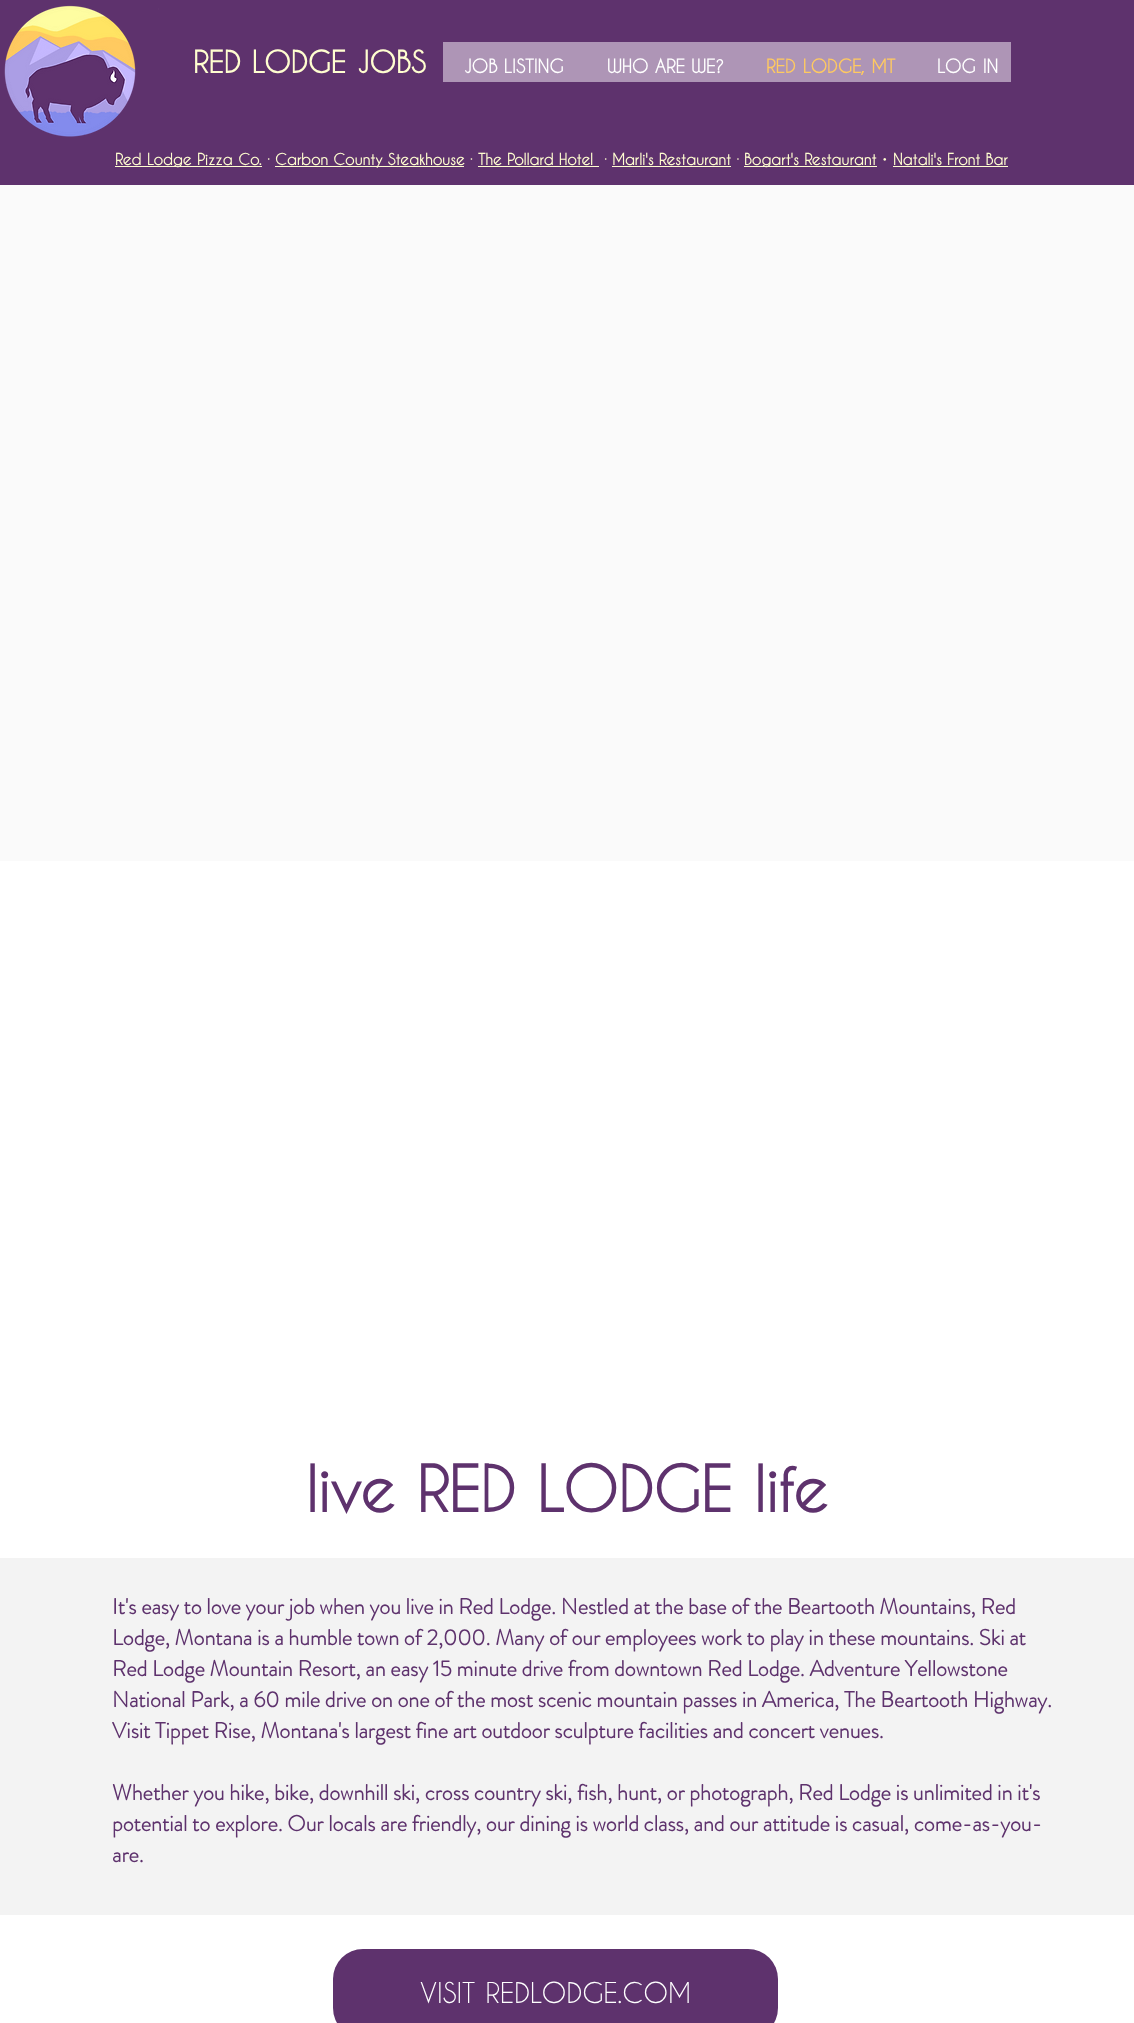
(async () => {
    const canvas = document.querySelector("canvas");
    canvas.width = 1134;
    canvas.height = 2023;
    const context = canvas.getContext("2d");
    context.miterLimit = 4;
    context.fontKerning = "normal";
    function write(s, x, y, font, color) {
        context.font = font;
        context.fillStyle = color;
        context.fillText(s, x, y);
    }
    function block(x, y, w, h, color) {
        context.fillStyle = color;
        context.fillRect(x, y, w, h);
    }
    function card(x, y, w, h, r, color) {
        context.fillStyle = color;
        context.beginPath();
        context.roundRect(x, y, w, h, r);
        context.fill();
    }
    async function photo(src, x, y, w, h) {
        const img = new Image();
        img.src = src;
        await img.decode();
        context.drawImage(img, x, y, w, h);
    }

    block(0, 0, 1134, 2023, "rgb(255, 255, 255)");
    block(0, 0, 1134, 185, "rgb(94, 50, 109)");
    await photo("media/1.png", 4, 5, 155, 132);
    context.wordSpacing = "1px";
    write("RED LODGE JOBS", 193, 73, "bold 29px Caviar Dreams", "rgb(255, 254, 208)");
    block(443, 42, 568, 40, "rgb(174, 149, 182)");
    context.wordSpacing = "0px";
    write("JOB LISTING", 464, 73, "bold 18px Caviar Dreams", "rgb(255, 255, 255)");
    write("WHO ARE WE?", 607, 73, "bold 18px Caviar Dreams", "rgb(255, 255, 255)");
    context.wordSpacing = "1px";
    write("RED LODGE, MT", 766, 73, "bold 18px Caviar Dreams", "rgb(255, 202, 96)");
    write("LOG IN", 937, 73, "bold 18px Caviar Dreams", "rgb(255, 255, 255)");
    block(115, 166, 147, 1, "rgb(255, 254, 208)");
    context.wordSpacing = "0.5px";
    write("Red Lodge Pizza Co.", 115, 165, "bold 15px Caviar Dreams", "rgb(255, 254, 208)");
    context.wordSpacing = "0px";
    write("·", 267, 165, "bold 15px Caviar Dreams", "rgb(255, 254, 208)");
    block(275, 166, 189, 1, "rgb(255, 254, 208)");
    write("Carbon County Steakhouse ·", 275, 165, "bold 15px Caviar Dreams", "rgb(255, 254, 208)");
    write("The Pollard Hotel", 478, 165, "bold 15px Caviar Dreams", "rgb(255, 254, 208)");
    block(478, 166, 121, 1, "rgb(255, 254, 208)");
    write("· Marli's Restaurant ·", 604, 165, "bold 15px Caviar Dreams", "rgb(255, 254, 208)");
    block(612, 166, 119, 1, "rgb(255, 254, 208)");
    block(744, 166, 133, 1, "rgb(255, 254, 208)");
    write("Bogart's Restaurant •", 744, 165, "bold 15px Caviar Dreams", "rgb(255, 254, 208)");
    write("Natali's Front Bar", 893, 165, "bold 15px Caviar Dreams", "rgb(255, 254, 208)");
    block(893, 166, 115, 1, "rgb(255, 254, 208)");
    block(0, 185, 1134, 676, "rgb(250, 250, 250)");
    context.wordSpacing = "1px";
    write("live RED LODGE life", 306, 1512, "bold 60px Caviar Dreams", "rgb(94, 50, 109)");
    block(0, 1558, 1134, 357, "rgb(243, 243, 243)");
    context.wordSpacing = "0px";
    write("It's easy to love your job when you live in Red Lodge. Nestled at the base of the Beartooth Mountains, Red", 112, 1614, "bold 22px 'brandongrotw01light'", "rgb(94, 50, 109)");
    write("Lodge, Montana is a humble town of 2,000. Many of our employees work to play in these mountains. Ski at", 112, 1645, "bold 22px 'brandongrotw01light'", "rgb(94, 50, 109)");
    write("Red Lodge Mountain Resort, an easy 15 minute drive from downtown Red Lodge. Adventure Yellowstone", 112, 1676, "bold 22px 'brandongrotw01light'", "rgb(94, 50, 109)");
    write("National Park, a 60 mile drive on one of the most scenic mountain passes in America, The Beartooth Highway.", 112, 1707, "bold 22px 'brandongrotw01light'", "rgb(94, 50, 109)");
    write("Visit Tippet Rise, Montana's largest fine art outdoor sculpture facilities and concert venues.", 112, 1738, "bold 22px 'brandongrotw01light'", "rgb(94, 50, 109)");
    write("Whether you hike, bike, downhill ski, cross country ski, fish, hunt, or photograph, Red Lodge is unlimited in it's", 112, 1800, "bold 22px 'brandongrotw01light'", "rgb(94, 50, 109)");
    write("potential to explore. Our locals are friendly, our dining is world class, and our attitude is casual, come-as-you-", 112, 1831, "bold 22px 'brandongrotw01light'", "rgb(94, 50, 109)");
    write("are.", 112, 1862, "bold 22px 'brandongrotw01light'", "rgb(94, 50, 109)");
    card(333, 1949, 445, 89, 30, "rgb(94, 50, 109)");
    context.wordSpacing = "1px";
    write("VISIT REDLODGE.COM", 420, 2003, "27px Caviar Dreams", "rgb(255, 255, 255)");
})();
